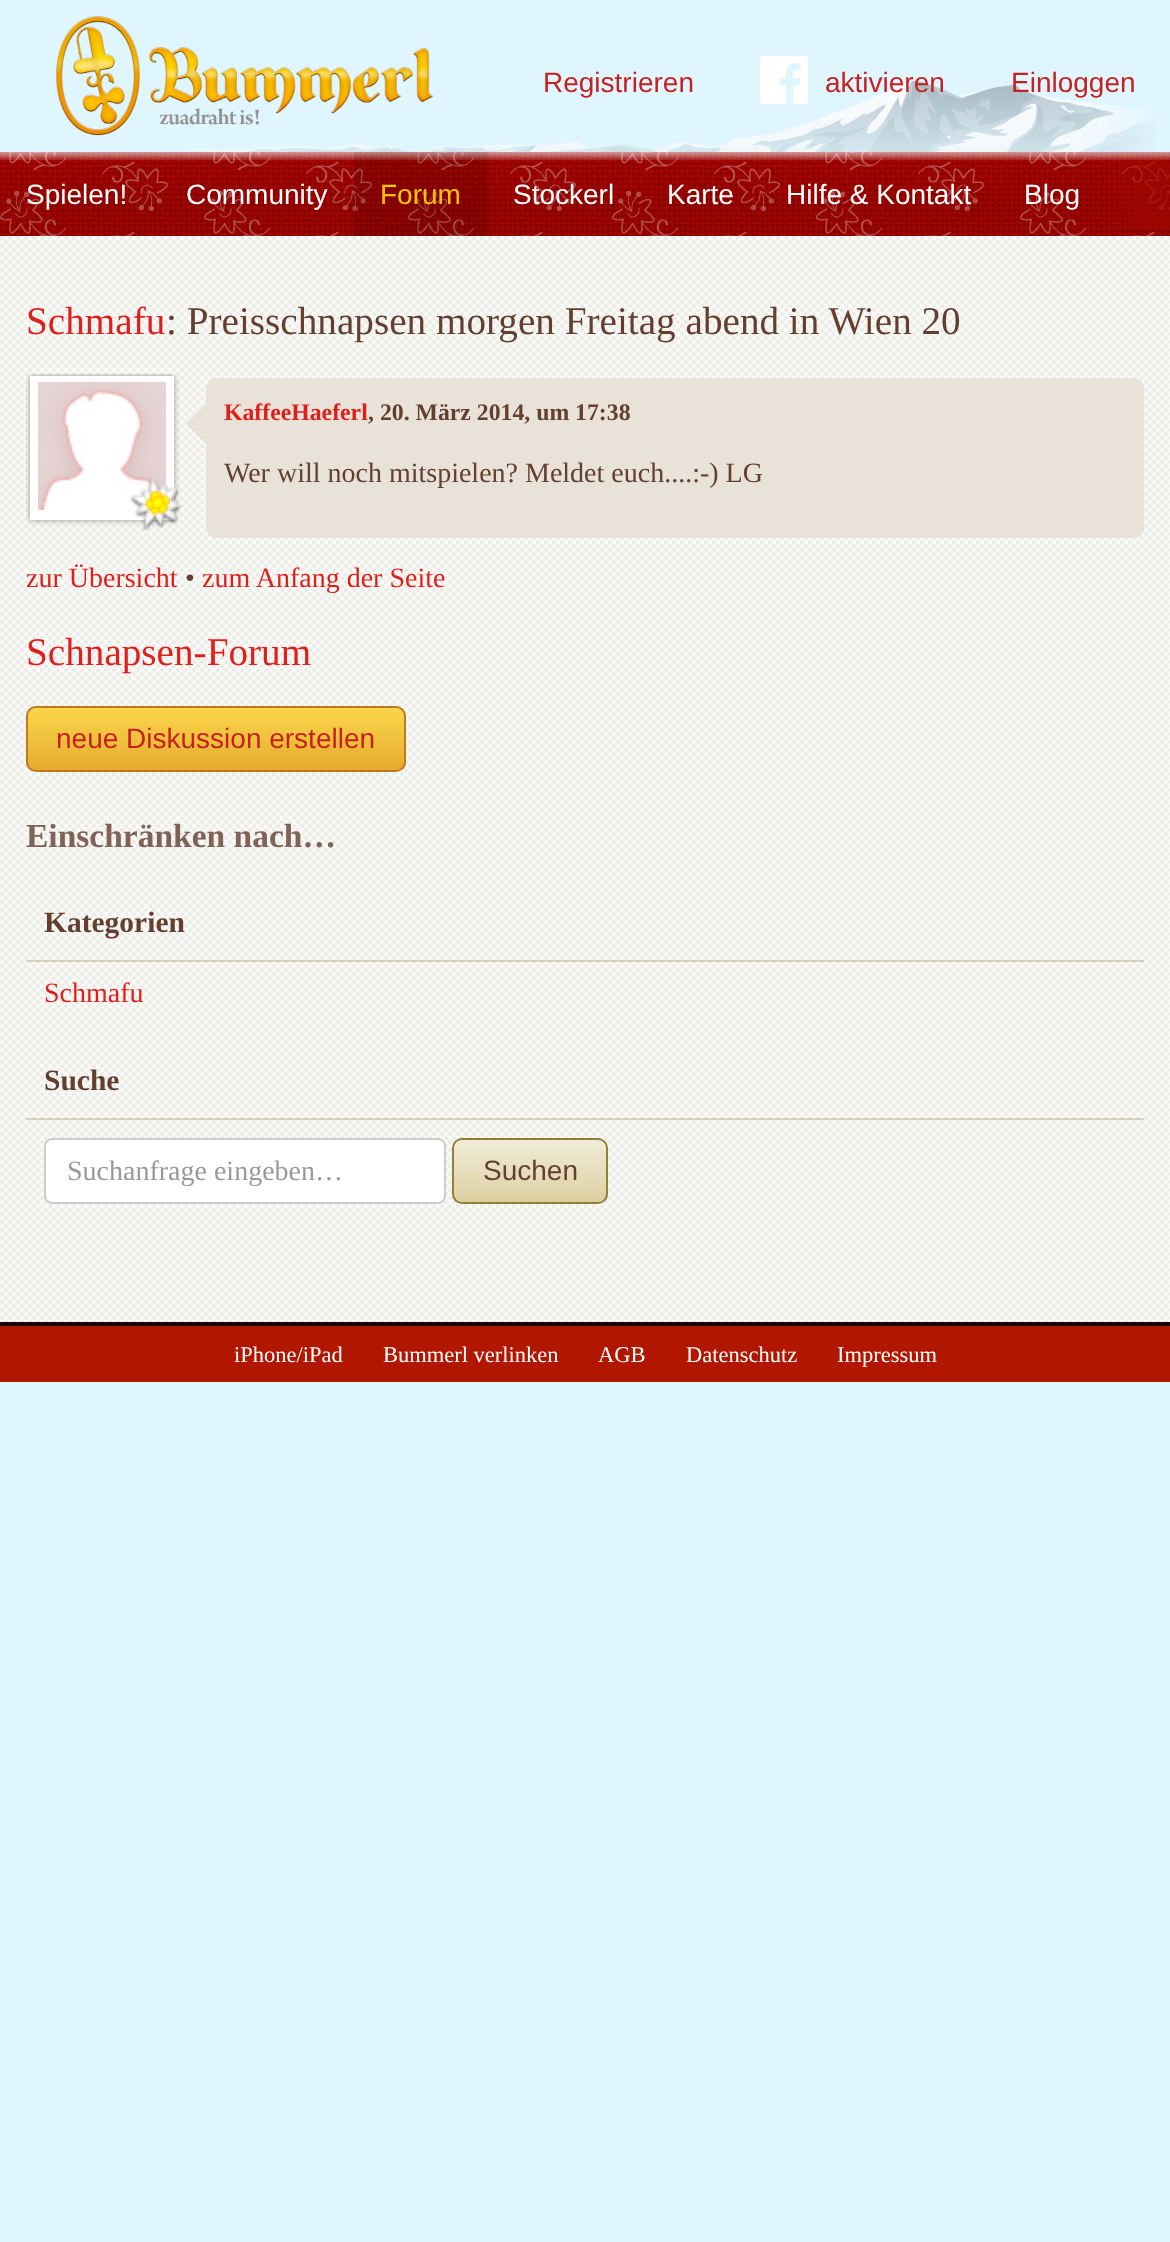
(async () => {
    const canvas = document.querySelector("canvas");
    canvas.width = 1170;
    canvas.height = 2242;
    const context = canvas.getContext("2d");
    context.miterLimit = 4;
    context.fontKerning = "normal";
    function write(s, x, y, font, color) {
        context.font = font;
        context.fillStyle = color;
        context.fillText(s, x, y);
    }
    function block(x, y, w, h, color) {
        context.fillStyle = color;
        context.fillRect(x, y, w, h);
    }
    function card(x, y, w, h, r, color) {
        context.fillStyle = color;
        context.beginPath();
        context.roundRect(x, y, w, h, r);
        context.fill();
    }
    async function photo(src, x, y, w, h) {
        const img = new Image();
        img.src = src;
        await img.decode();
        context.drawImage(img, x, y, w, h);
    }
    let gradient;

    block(0, 0, 1170, 2242, "rgb(224, 246, 255)");
    await photo("media/1.png", 175, 80, 980, 72);
    await photo("media/2.png", 56, 16, 378, 120);
    write("Registrieren", 543, 92, "28px Liberation Sans", "rgb(198, 33, 33)");
    await photo("media/3.png", 760, 56, 48, 48);
    write("aktivieren", 825, 92, "28px Liberation Sans", "rgb(198, 33, 33)");
    write("Einloggen", 1011, 92, "28px Liberation Sans", "rgb(198, 33, 33)");
    await photo("media/4.png", 0, 152, 1170, 84);
    write("Spielen!", 26, 204, "28px Liberation Sans", "rgb(255, 255, 255)");
    write("Community", 186, 204, "28px Liberation Sans", "rgb(255, 255, 255)");
    block(354, 152, 134, 84, "rgba(0, 0, 0, 0.1)");
    write("Forum", 380, 204, "28px Liberation Sans", "rgb(248, 195, 0)");
    write("Stockerl", 513, 204, "28px Liberation Sans", "rgb(255, 255, 255)");
    write("Karte", 667, 204, "28px Liberation Sans", "rgb(255, 255, 255)");
    write("Hilfe & Kontakt", 786, 204, "28px Liberation Sans", "rgb(255, 255, 255)");
    write("Blog", 1024, 204, "28px Liberation Sans", "rgb(255, 255, 255)");
    await photo("media/5.png", 0, 236, 1170, 1086);
    write("Schmafu", 26, 334, "39.2px Liberation Serif", "rgb(222, 31, 28)");
    write(": Preisschnapsen morgen Freitag abend in Wien 20", 166, 334, "39.2px Liberation Serif", "rgb(99, 63, 47)");
    context.save();
    context.beginPath();
    context.rect(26, 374, 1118, 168);
    context.clip();
    context.fillStyle = "rgba(0, 0, 0, 0.4)";
    context.filter = "blur(3px)";
    context.beginPath();
    context.rect(30, 376, 144, 144);
    context.fill();
    context.filter = "none";
    context.restore();
    block(30, 376, 144, 144, "rgb(255, 255, 255)");
    await photo("media/6.png", 38, 382, 128, 128);
    await photo("media/7.png", 129, 477, 53, 54);
    card(206, 378, 938, 160, 10, "rgb(232, 226, 216)");
    context.beginPath();
    context.moveTo(206, 404);
    context.lineTo(206, 444);
    context.lineTo(186, 424);
    context.closePath();
    context.fill();
    write("KaffeeHaeferl", 224, 420, "bold 23.75px Liberation Serif", "rgb(222, 31, 28)");
    write(", 20. März 2014, um 17:38", 368, 420, "bold 23.75px Liberation Serif", "rgb(99, 63, 47)");
    write("Wer will noch mitspielen? Meldet euch....:-) LG", 224, 482, "28px Liberation Serif", "rgb(99, 63, 47)");
    write("zur Übersicht", 26, 587, "28px Liberation Serif", "rgb(222, 31, 28)");
    write("•", 185, 587, "28px Liberation Serif", "rgb(99, 63, 47)");
    write("zum Anfang der Seite", 202, 587, "28px Liberation Serif", "rgb(222, 31, 28)");
    write("Schnapsen-Forum", 26, 665, "39.2px Liberation Serif", "rgb(222, 31, 28)");
    context.save();
    context.beginPath();
    context.roundRect(26, 706, 380, 66, 10);
    context.clip();
    gradient = context.createLinearGradient(216, 708, 216, 770);
    gradient.addColorStop(0, "rgb(250, 215, 75)");
    gradient.addColorStop(1, "rgb(229, 171, 46)");
    context.fillStyle = gradient;
    context.fillRect(26, 708, 380, 62);
    context.restore();
    context.beginPath();
    context.roundRect(27, 707, 378, 64, 9);
    context.strokeStyle = "rgb(191, 122, 32)";
    context.lineWidth = 2;
    context.stroke();
    write("neue Diskussion erstellen", 56, 748, "28px Liberation Sans", "rgb(198, 33, 33)");
    write("Einschränken nach…", 26, 847, "bold 33.5px Liberation Serif", "rgb(128, 99, 86)");
    block(26, 960, 1118, 2, "rgba(148, 128, 56, 0.3)");
    write("Kategorien", 44, 932, "bold 29.5px Liberation Serif", "rgb(99, 63, 47)");
    write("Schmafu", 44, 1002, "28px Liberation Serif", "rgb(222, 31, 28)");
    block(26, 1118, 1118, 2, "rgba(148, 128, 56, 0.3)");
    write("Suche", 44, 1090, "bold 29.5px Liberation Serif", "rgb(99, 63, 47)");
    context.fillStyle = "rgb(255, 255, 255)";
    context.beginPath();
    context.roundRect(45, 1139, 400, 64, 7);
    context.fill();
    context.strokeStyle = "rgb(204, 204, 204)";
    context.stroke();
    write("Suchanfrage eingeben…", 67, 1180, "28px Liberation Serif", "rgb(153, 153, 153)");
    context.save();
    context.beginPath();
    context.roundRect(452, 1138, 156, 66, 10);
    context.clip();
    gradient = context.createLinearGradient(530, 1140, 530, 1202);
    gradient.addColorStop(0, "rgb(241, 236, 217)");
    gradient.addColorStop(1, "rgb(220, 208, 161)");
    context.fillStyle = gradient;
    context.fillRect(452, 1140, 156, 62);
    context.restore();
    context.beginPath();
    context.roundRect(453, 1139, 154, 64, 9);
    context.strokeStyle = "rgb(148, 128, 55)";
    context.stroke();
    write("Suchen", 483, 1180, "28px Liberation Sans", "rgb(99, 63, 47)");
    block(0, 1326, 1170, 56, "rgb(177, 22, 0)");
    block(0, 1322, 1170, 4, "rgb(24, 3, 0)");
    write("iPhone/iPad", 234, 1362, "22.5px Liberation Serif", "rgb(255, 255, 255)");
    write("Bummerl verlinken", 383, 1362, "22.5px Liberation Serif", "rgb(255, 255, 255)");
    write("AGB", 598, 1362, "22.5px Liberation Serif", "rgb(255, 255, 255)");
    write("Datenschutz", 686, 1362, "22.5px Liberation Serif", "rgb(255, 255, 255)");
    write("Impressum", 837, 1362, "22.5px Liberation Serif", "rgb(255, 255, 255)");
})();
